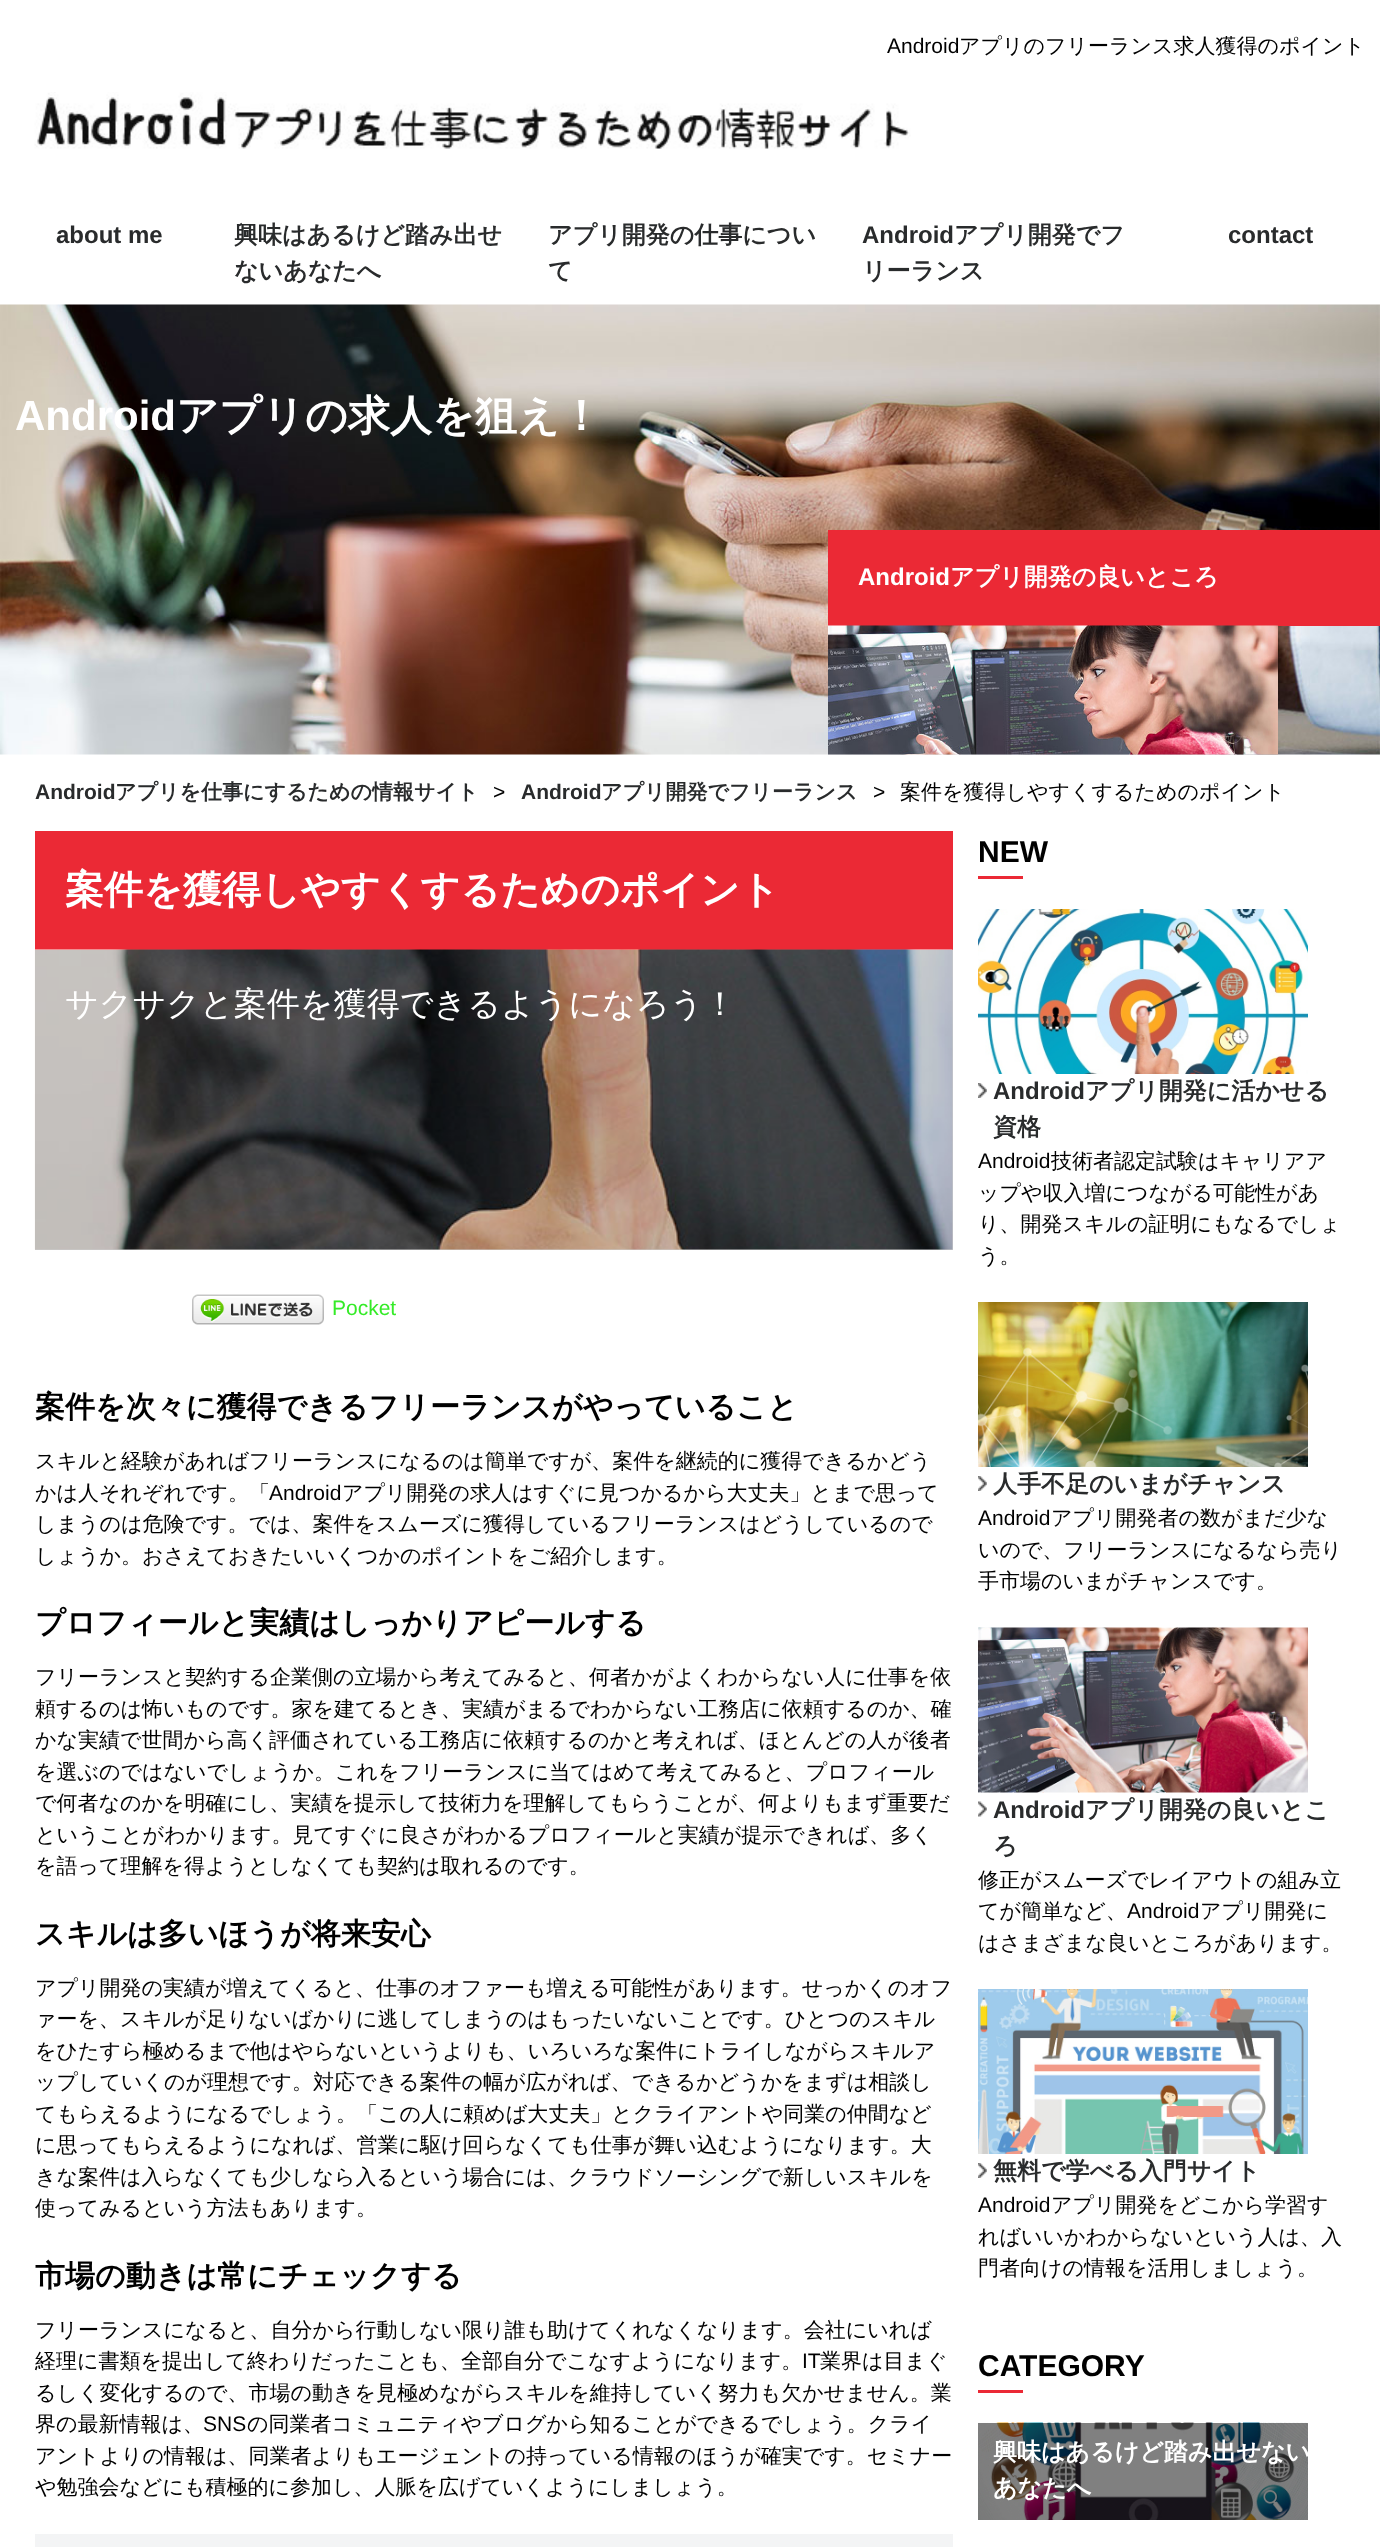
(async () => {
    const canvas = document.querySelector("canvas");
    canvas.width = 1380;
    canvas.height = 2547;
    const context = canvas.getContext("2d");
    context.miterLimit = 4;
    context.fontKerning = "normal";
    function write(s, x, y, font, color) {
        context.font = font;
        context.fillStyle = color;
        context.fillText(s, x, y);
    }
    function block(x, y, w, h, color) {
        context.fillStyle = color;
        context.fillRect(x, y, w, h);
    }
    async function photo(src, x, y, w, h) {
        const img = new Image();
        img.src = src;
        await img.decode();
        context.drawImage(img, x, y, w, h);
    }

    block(0, 0, 1380, 2547, "rgb(255, 255, 255)");
    block(35, 950, 918, 300, "rgb(204, 204, 204)");
    write("Android", 887, 53, "21px Liberation Sans", "rgb(0, 0, 0)");
    write("アプリのフリーランス求人獲得のポイント", 959, 53, "500 21px WenQuanYi Zen Hei", "rgb(0, 0, 0)");
    await photo("media/1.png", 34, 92, 877, 57);
    write("about me", 56, 243, "bold 24px Liberation Sans", "rgb(41, 43, 44)");
    write("興味はあるけど踏み出せ", 234, 243, "bold 24px WenQuanYi Zen Hei", "rgb(41, 43, 44)");
    write("ないあなたへ", 234, 279, "bold 24px WenQuanYi Zen Hei", "rgb(41, 43, 44)");
    write("アプリ開発の仕事につい", 548, 243, "bold 24px WenQuanYi Zen Hei", "rgb(41, 43, 44)");
    write("て", 548, 279, "bold 24px WenQuanYi Zen Hei", "rgb(41, 43, 44)");
    write("Android", 862, 243, "bold 24px Liberation Sans", "rgb(41, 43, 44)");
    write("アプリ開発でフ", 954, 243, "bold 24px WenQuanYi Zen Hei", "rgb(41, 43, 44)");
    write("リーランス", 862, 279, "bold 24px WenQuanYi Zen Hei", "rgb(41, 43, 44)");
    write("contact", 1228, 243, "bold 24px Liberation Sans", "rgb(41, 43, 44)");
    await photo("media/2.png", 0, 304, 1380, 451);
    write("Android", 15, 430, "bold 42px Liberation Sans", "rgb(255, 255, 255)");
    write("アプリの求人を狙え！", 176, 430, "bold 42px WenQuanYi Zen Hei", "rgb(255, 255, 255)");
    block(828, 530, 552, 96, "rgb(235, 41, 53)");
    write("Android", 858, 585, "bold 24px Liberation Sans", "rgb(255, 255, 255)");
    write("アプリ開発の良いところ", 950, 585, "bold 24px WenQuanYi Zen Hei", "rgb(255, 255, 255)");
    await photo("media/3.png", 828, 625, 450, 130);
    write("Android", 35, 799, "bold 21px Liberation Sans", "rgb(41, 43, 44)");
    write("アプリを仕事にするための情報サイト", 115, 799, "bold 21px WenQuanYi Zen Hei", "rgb(41, 43, 44)");
    write(">", 493, 799, "21px Liberation Sans", "rgb(0, 0, 0)");
    write("Android", 521, 799, "bold 21px Liberation Sans", "rgb(41, 43, 44)");
    write("アプリ開発でフリーランス", 601, 799, "bold 21px WenQuanYi Zen Hei", "rgb(41, 43, 44)");
    write(">", 873, 799, "21px Liberation Sans", "rgb(0, 0, 0)");
    write("案件を獲得しやすくするためのポイント", 900, 799, "500 21px WenQuanYi Zen Hei", "rgb(0, 0, 0)");
    block(35, 831, 918, 119, "rgb(235, 41, 53)");
    write("案件を獲得しやすくするためのポイント", 65, 903, "bold 39px WenQuanYi Zen Hei", "rgb(255, 255, 255)");
    await photo("media/4.png", 34, 949, 919, 301);
    write("サクサクと案件を獲得できるようになろう！", 65, 1015, "500 33px WenQuanYi Zen Hei", "rgb(255, 255, 255)");
    await photo("media/5.png", 192, 1294, 132, 31);
    write("Pocket", 332, 1315, "21px Liberation Sans", "rgb(53, 235, 40)");
    write("案件を次々に獲得できるフリーランスがやっていること", 35, 1417, "bold 30px WenQuanYi Zen Hei", "rgb(0, 0, 0)");
    write("スキルと経験があればフリーランスになるのは簡単ですが、案件を継続的に獲得できるかどう", 35, 1468, "500 21px WenQuanYi Zen Hei", "rgb(0, 0, 0)");
    write("かは人それぞれです。「", 35, 1500, "500 21px WenQuanYi Zen Hei", "rgb(0, 0, 0)");
    write("Android", 269, 1500, "21px Liberation Sans", "rgb(0, 0, 0)");
    write("アプリ開発の求人はすぐに見つかるから大丈夫」とまで思って", 342, 1500, "500 21px WenQuanYi Zen Hei", "rgb(0, 0, 0)");
    write("しまうのは危険です。では、案件をスムーズに獲得しているフリーランスはどうしているので", 35, 1531, "500 21px WenQuanYi Zen Hei", "rgb(0, 0, 0)");
    write("しょうか。おさえておきたいいくつかのポイントをご紹介します。", 35, 1563, "500 21px WenQuanYi Zen Hei", "rgb(0, 0, 0)");
    write("プロフィールと実績はしっかりアピールする", 35, 1633, "bold 30px WenQuanYi Zen Hei", "rgb(0, 0, 0)");
    write("フリーランスと契約する企業側の立場から考えてみると、何者かがよくわからない人に仕事を依", 35, 1684, "500 21px WenQuanYi Zen Hei", "rgb(0, 0, 0)");
    write("頼するのは怖いものです。家を建てるとき、実績がまるでわからない工務店に依頼するのか、確", 35, 1716, "500 21px WenQuanYi Zen Hei", "rgb(0, 0, 0)");
    write("かな実績で世間から高く評価されている工務店に依頼するのかと考えれば、ほとんどの人が後者", 35, 1747, "500 21px WenQuanYi Zen Hei", "rgb(0, 0, 0)");
    write("を選ぶのではないでしょうか。これをフリーランスに当てはめて考えてみると、プロフィール", 35, 1779, "500 21px WenQuanYi Zen Hei", "rgb(0, 0, 0)");
    write("で何者なのかを明確にし、実績を提示して技術力を理解してもらうことが、何よりもまず重要だ", 35, 1810, "500 21px WenQuanYi Zen Hei", "rgb(0, 0, 0)");
    write("ということがわかります。見てすぐに良さがわかるプロフィールと実績が提示できれば、多く", 35, 1842, "500 21px WenQuanYi Zen Hei", "rgb(0, 0, 0)");
    write("を語って理解を得ようとしなくても契約は取れるのです。", 35, 1873, "500 21px WenQuanYi Zen Hei", "rgb(0, 0, 0)");
    write("スキルは多いほうが将来安心", 35, 1944, "bold 30px WenQuanYi Zen Hei", "rgb(0, 0, 0)");
    write("アプリ開発の実績が増えてくると、仕事のオファーも増える可能性があります。せっかくのオフ", 35, 1995, "500 21px WenQuanYi Zen Hei", "rgb(0, 0, 0)");
    write("ァーを、スキルが足りないばかりに逃してしまうのはもったいないことです。ひとつのスキル", 35, 2026, "500 21px WenQuanYi Zen Hei", "rgb(0, 0, 0)");
    write("をひたすら極めるまで他はやらないというよりも、いろいろな案件にトライしながらスキルア", 35, 2058, "500 21px WenQuanYi Zen Hei", "rgb(0, 0, 0)");
    write("ップしていくのが理想です。対応できる案件の幅が広がれば、できるかどうかをまずは相談し", 35, 2089, "500 21px WenQuanYi Zen Hei", "rgb(0, 0, 0)");
    write("てもらえるようになるでしょう。「この人に頼めば大丈夫」とクライアントや同業の仲間など", 35, 2121, "500 21px WenQuanYi Zen Hei", "rgb(0, 0, 0)");
    write("に思ってもらえるようになれば、営業に駆け回らなくても仕事が舞い込むようになります。大", 35, 2152, "500 21px WenQuanYi Zen Hei", "rgb(0, 0, 0)");
    write("きな案件は入らなくても少しなら入るという場合には、クラウドソーシングで新しいスキルを", 35, 2184, "500 21px WenQuanYi Zen Hei", "rgb(0, 0, 0)");
    write("使ってみるという方法もあります。", 35, 2215, "500 21px WenQuanYi Zen Hei", "rgb(0, 0, 0)");
    write("市場の動きは常にチェックする", 35, 2286, "bold 30px WenQuanYi Zen Hei", "rgb(0, 0, 0)");
    write("フリーランスになると、自分から行動しない限り誰も助けてくれなくなります。会社にいれば", 35, 2337, "500 21px WenQuanYi Zen Hei", "rgb(0, 0, 0)");
    write("経理に書類を提出して終わりだったことも、全部自分でこなすようになります。", 35, 2368, "500 21px WenQuanYi Zen Hei", "rgb(0, 0, 0)");
    write("IT", 802, 2368, "21px Liberation Sans", "rgb(0, 0, 0)");
    write("業界は目まぐ", 820, 2368, "500 21px WenQuanYi Zen Hei", "rgb(0, 0, 0)");
    write("るしく変化するので、市場の動きを見極めながらスキルを維持していく努力も欠かせません。業", 35, 2400, "500 21px WenQuanYi Zen Hei", "rgb(0, 0, 0)");
    write("界の最新情報は、", 35, 2431, "500 21px WenQuanYi Zen Hei", "rgb(0, 0, 0)");
    write("SNS", 203, 2431, "21px Liberation Sans", "rgb(0, 0, 0)");
    write("の同業者コミュニティやブログから知ることができるでしょう。クライ", 247, 2431, "500 21px WenQuanYi Zen Hei", "rgb(0, 0, 0)");
    write("アントよりの情報は、同業者よりもエージェントの持っている情報のほうが確実です。セミナー", 35, 2463, "500 21px WenQuanYi Zen Hei", "rgb(0, 0, 0)");
    write("や勉強会などにも積極的に参加し、人脈を広げていくようにしましょう。", 35, 2494, "500 21px WenQuanYi Zen Hei", "rgb(0, 0, 0)");
    block(35, 2534, 918, 13, "rgb(243, 244, 245)");
    write("NEW", 978, 862, "bold 30px Liberation Sans", "rgb(0, 0, 0)");
    block(978, 876, 45, 3, "rgb(235, 41, 53)");
    await photo("media/6.png", 978, 909, 330, 165);
    await photo("media/7.png", 978, 1083, 9, 15);
    write("Android", 993, 1099, "bold 24px Liberation Sans", "rgb(41, 43, 44)");
    write("アプリ開発に活かせる", 1085, 1099, "bold 24px WenQuanYi Zen Hei", "rgb(41, 43, 44)");
    write("資格", 993, 1135, "bold 24px WenQuanYi Zen Hei", "rgb(41, 43, 44)");
    write("Android", 978, 1168, "21px Liberation Sans", "rgb(0, 0, 0)");
    write("技術者認定試験はキャリアア", 1051, 1168, "500 21px WenQuanYi Zen Hei", "rgb(0, 0, 0)");
    write("ップや収入増につながる可能性があ", 978, 1200, "500 21px WenQuanYi Zen Hei", "rgb(0, 0, 0)");
    write("り、開発スキルの証明にもなるでしょ", 978, 1231, "500 21px WenQuanYi Zen Hei", "rgb(0, 0, 0)");
    write("う。", 978, 1263, "500 21px WenQuanYi Zen Hei", "rgb(0, 0, 0)");
    await photo("media/8.png", 978, 1302, 330, 165);
    await photo("media/7.png", 978, 1476, 9, 15);
    write("人手不足のいまがチャンス", 993, 1492, "bold 24px WenQuanYi Zen Hei", "rgb(41, 43, 44)");
    write("Android", 978, 1525, "21px Liberation Sans", "rgb(0, 0, 0)");
    write("アプリ開発者の数がまだ少な", 1051, 1525, "500 21px WenQuanYi Zen Hei", "rgb(0, 0, 0)");
    write("いので、フリーランスになるなら売り", 978, 1557, "500 21px WenQuanYi Zen Hei", "rgb(0, 0, 0)");
    write("手市場のいまがチャンスです。", 978, 1588, "500 21px WenQuanYi Zen Hei", "rgb(0, 0, 0)");
    await photo("media/9.png", 978, 1627, 330, 166);
    await photo("media/10.png", 978, 1801, 9, 16);
    write("Android", 993, 1818, "bold 24px Liberation Sans", "rgb(41, 43, 44)");
    write("アプリ開発の良いとこ", 1085, 1818, "bold 24px WenQuanYi Zen Hei", "rgb(41, 43, 44)");
    write("ろ", 993, 1854, "bold 24px WenQuanYi Zen Hei", "rgb(41, 43, 44)");
    write("修正がスムーズでレイアウトの組み立", 978, 1887, "500 21px WenQuanYi Zen Hei", "rgb(0, 0, 0)");
    write("てが簡単など、", 978, 1918, "500 21px WenQuanYi Zen Hei", "rgb(0, 0, 0)");
    write("Android", 1127, 1918, "21px Liberation Sans", "rgb(0, 0, 0)");
    write("アプリ開発に", 1200, 1918, "500 21px WenQuanYi Zen Hei", "rgb(0, 0, 0)");
    write("はさまざまな良いところがあります。", 978, 1950, "500 21px WenQuanYi Zen Hei", "rgb(0, 0, 0)");
    await photo("media/11.png", 978, 1989, 330, 165);
    await photo("media/7.png", 978, 2163, 9, 15);
    write("無料で学べる入門サイト", 993, 2179, "bold 24px WenQuanYi Zen Hei", "rgb(41, 43, 44)");
    write("Android", 978, 2212, "21px Liberation Sans", "rgb(0, 0, 0)");
    write("アプリ開発をどこから学習す", 1051, 2212, "500 21px WenQuanYi Zen Hei", "rgb(0, 0, 0)");
    write("ればいいかわからないという人は、入", 978, 2244, "500 21px WenQuanYi Zen Hei", "rgb(0, 0, 0)");
    write("門者向けの情報を活用しましょう。", 978, 2275, "500 21px WenQuanYi Zen Hei", "rgb(0, 0, 0)");
    write("CATEGORY", 978, 2376, "bold 30px Liberation Sans", "rgb(0, 0, 0)");
    block(978, 2390, 45, 3, "rgb(235, 41, 53)");
    await photo("media/12.png", 978, 2422, 330, 98);
    write("興味はあるけど踏み出せない", 993, 2460, "bold 24px WenQuanYi Zen Hei", "rgb(255, 255, 255)");
    write("あなたへ", 993, 2496, "bold 24px WenQuanYi Zen Hei", "rgb(255, 255, 255)");
})();
